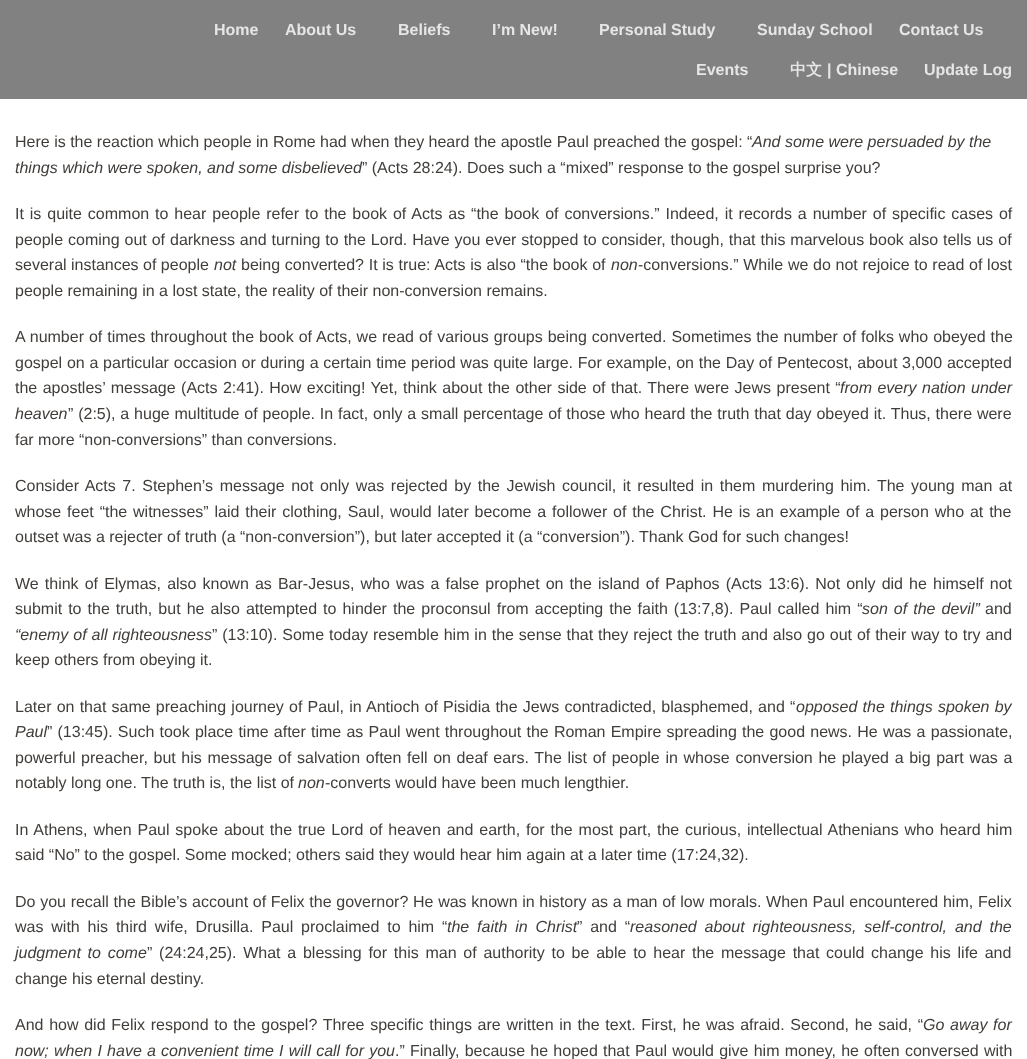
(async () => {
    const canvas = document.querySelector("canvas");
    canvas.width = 1027;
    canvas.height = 1059;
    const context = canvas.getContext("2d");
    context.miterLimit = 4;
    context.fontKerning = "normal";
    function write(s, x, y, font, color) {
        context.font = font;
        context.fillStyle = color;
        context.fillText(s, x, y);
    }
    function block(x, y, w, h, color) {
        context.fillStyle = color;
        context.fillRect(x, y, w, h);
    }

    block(0, 0, 1027, 1059, "rgb(255, 255, 255)");
    block(0, 0, 1027, 99, "rgb(129, 129, 129)");
    write("Home", 214, 35, "bold 16px Liberation Sans", "rgb(230, 230, 230)");
    write("About Us", 285, 35, "bold 16px Liberation Sans", "rgb(230, 230, 230)");
    write("Beliefs", 398, 35, "bold 16px Liberation Sans", "rgb(230, 230, 230)");
    write("I’m New!", 492, 35, "bold 16px Liberation Sans", "rgb(230, 230, 230)");
    write("Personal Study", 599, 35, "bold 16px Liberation Sans", "rgb(230, 230, 230)");
    write("Sunday School", 757, 35, "bold 16px Liberation Sans", "rgb(230, 230, 230)");
    write("Contact Us", 899, 35, "bold 16px Liberation Sans", "rgb(230, 230, 230)");
    write("Events", 696, 75, "bold 16px Liberation Sans", "rgb(230, 230, 230)");
    write("中文", 790, 75, "bold 16px WenQuanYi Zen Hei", "rgb(230, 230, 230)");
    write("| Chinese", 827, 75, "bold 16px Liberation Sans", "rgb(230, 230, 230)");
    write("Update Log", 924, 75, "bold 16px Liberation Sans", "rgb(230, 230, 230)");
    write("Here is the reaction which people in Rome had when they heard the apostle Paul preached the gospel: “", 15, 147, "16px Liberation Sans", "rgb(64, 61, 58)");
    write("And some were persuaded by the", 752, 147, "italic 16px Liberation Sans", "rgb(64, 61, 58)");
    write("things which were spoken, and some disbelieved", 15, 173, "italic 16px Liberation Sans", "rgb(64, 61, 58)");
    write("” (Acts 28:24). Does such a “mixed” response to the gospel surprise you?", 362, 173, "16px Liberation Sans", "rgb(64, 61, 58)");
    context.wordSpacing = "1.45px";
    write("It is quite common to hear people refer to the book of Acts as “the book of conversions.” Indeed, it records a number of specific cases of", 15, 219, "16px Liberation Sans", "rgb(64, 61, 58)");
    context.wordSpacing = "0.5px";
    write("people coming out of darkness and turning to the Lord. Have you ever stopped to consider, though, that this marvelous book also tells us of", 15, 245, "16px Liberation Sans", "rgb(64, 61, 58)");
    context.wordSpacing = "0px";
    write("several instances of people", 15, 270, "16px Liberation Sans", "rgb(64, 61, 58)");
    write("not", 214, 270, "italic 16px Liberation Sans", "rgb(64, 61, 58)");
    context.wordSpacing = "0.25px";
    write("being converted? It is true: Acts is also “the book of", 241, 270, "16px Liberation Sans", "rgb(64, 61, 58)");
    context.wordSpacing = "0px";
    write("non", 611, 270, "italic 16px Liberation Sans", "rgb(64, 61, 58)");
    context.wordSpacing = "0.25px";
    write("-conversions.” While we do not rejoice to read of lost", 638, 270, "16px Liberation Sans", "rgb(64, 61, 58)");
    context.wordSpacing = "0px";
    write("people remaining in a lost state, the reality of their non-conversion remains.", 15, 296, "16px Liberation Sans", "rgb(64, 61, 58)");
    context.wordSpacing = "0.5px";
    write("A number of times throughout the book of Acts, we read of various groups being converted. Sometimes the number of folks who obeyed the", 15, 342, "16px Liberation Sans", "rgb(64, 61, 58)");
    context.wordSpacing = "0.3px";
    write("gospel on a particular occasion or during a certain time period was quite large. For example, on the Day of Pentecost, about 3,000 accepted", 15, 368, "16px Liberation Sans", "rgb(64, 61, 58)");
    context.wordSpacing = "1px";
    write("the apostles’ message (Acts 2:41). How exciting! Yet, think about the other side of that. There were Jews present “", 15, 393, "16px Liberation Sans", "rgb(64, 61, 58)");
    write("from every nation under", 840, 393, "italic 16px Liberation Sans", "rgb(64, 61, 58)");
    context.wordSpacing = "0px";
    write("heaven", 15, 419, "italic 16px Liberation Sans", "rgb(64, 61, 58)");
    context.wordSpacing = "0.4px";
    write("” (2:5), a huge multitude of people. In fact, only a small percentage of those who heard the truth that day obeyed it. Thus, there were", 68, 419, "16px Liberation Sans", "rgb(64, 61, 58)");
    context.wordSpacing = "0px";
    write("far more “non-conversions” than conversions.", 15, 445, "16px Liberation Sans", "rgb(64, 61, 58)");
    context.wordSpacing = "2.1px";
    write("Consider Acts 7. Stephen’s message not only was rejected by the Jewish council, it resulted in them murdering him. The young man at", 15, 491, "16px Liberation Sans", "rgb(64, 61, 58)");
    context.wordSpacing = "1.4px";
    write("whose feet “the witnesses” laid their clothing, Saul, would later become a follower of the Christ. He is an example of a person who at the", 15, 517, "16px Liberation Sans", "rgb(64, 61, 58)");
    context.wordSpacing = "0px";
    write("outset was a rejecter of truth (a “non-conversion”), but later accepted it (a “conversion”). Thank God for such changes!", 15, 542, "16px Liberation Sans", "rgb(64, 61, 58)");
    context.wordSpacing = "1.65px";
    write("We think of Elymas, also known as Bar-Jesus, who was a false prophet on the island of Paphos (Acts 13:6). Not only did he himself not", 15, 589, "16px Liberation Sans", "rgb(64, 61, 58)");
    context.wordSpacing = "1.6px";
    write("submit to the truth, but he also attempted to hinder the proconsul from accepting the faith (13:7,8). Paul called him “", 15, 614, "16px Liberation Sans", "rgb(64, 61, 58)");
    write("son of the devil”", 862, 614, "italic 16px Liberation Sans", "rgb(64, 61, 58)");
    context.wordSpacing = "0px";
    write("and", 985, 614, "16px Liberation Sans", "rgb(64, 61, 58)");
    context.wordSpacing = "0.45px";
    write("“enemy of all righteousness", 15, 640, "italic 16px Liberation Sans", "rgb(64, 61, 58)");
    write("” (13:10). Some today resemble him in the sense that they reject the truth and also go out of their way to try and", 212, 640, "16px Liberation Sans", "rgb(64, 61, 58)");
    context.wordSpacing = "0px";
    write("keep others from obeying it.", 15, 665, "16px Liberation Sans", "rgb(64, 61, 58)");
    context.wordSpacing = "0.75px";
    write("Later on that same preaching journey of Paul, in Antioch of Pisidia the Jews contradicted, blasphemed, and “", 15, 712, "16px Liberation Sans", "rgb(64, 61, 58)");
    write("opposed the things spoken by", 796, 712, "italic 16px Liberation Sans", "rgb(64, 61, 58)");
    context.wordSpacing = "0px";
    write("Paul", 15, 737, "italic 16px Liberation Sans", "rgb(64, 61, 58)");
    context.wordSpacing = "0.75px";
    write("” (13:45). Such took place time after time as Paul went throughout the Roman Empire spreading the good news. He was a passionate,", 47, 737, "16px Liberation Sans", "rgb(64, 61, 58)");
    context.wordSpacing = "1.2px";
    write("powerful preacher, but his message of salvation often fell on deaf ears. The list of people in whose conversion he played a big part was a", 15, 763, "16px Liberation Sans", "rgb(64, 61, 58)");
    context.wordSpacing = "0px";
    write("notably long one. The truth is, the list of", 15, 788, "16px Liberation Sans", "rgb(64, 61, 58)");
    write("non", 298, 788, "italic 16px Liberation Sans", "rgb(64, 61, 58)");
    write("-converts would have been much lengthier.", 325, 788, "16px Liberation Sans", "rgb(64, 61, 58)");
    context.wordSpacing = "1.4px";
    write("In Athens, when Paul spoke about the true Lord of heaven and earth, for the most part, the curious, intellectual Athenians who heard him", 15, 835, "16px Liberation Sans", "rgb(64, 61, 58)");
    context.wordSpacing = "0px";
    write("said “No” to the gospel. Some mocked; others said they would hear him again at a later time (17:24,32).", 15, 860, "16px Liberation Sans", "rgb(64, 61, 58)");
    context.wordSpacing = "0.25px";
    write("Do you recall the Bible’s account of Felix the governor? He was known in history as a man of low morals. When Paul encountered him, Felix", 15, 907, "16px Liberation Sans", "rgb(64, 61, 58)");
    context.wordSpacing = "3.4px";
    write("was with his third wife, Drusilla. Paul proclaimed to him “", 15, 932, "16px Liberation Sans", "rgb(64, 61, 58)");
    write("the faith in Christ", 447, 932, "italic 16px Liberation Sans", "rgb(64, 61, 58)");
    write("” and “", 577, 932, "16px Liberation Sans", "rgb(64, 61, 58)");
    write("reasoned about righteousness, self-control, and the", 630, 932, "italic 16px Liberation Sans", "rgb(64, 61, 58)");
    context.wordSpacing = "2.3px";
    write("judgment to come", 15, 958, "italic 16px Liberation Sans", "rgb(64, 61, 58)");
    write("” (24:24,25). What a blessing for this man of authority to be able to hear the message that could change his life and", 147, 958, "16px Liberation Sans", "rgb(64, 61, 58)");
    context.wordSpacing = "0px";
    write("change his eternal destiny.", 15, 984, "16px Liberation Sans", "rgb(64, 61, 58)");
    context.wordSpacing = "1.25px";
    write("And how did Felix respond to the gospel? Three specific things are written in the text. First, he was afraid. Second, he said, “", 15, 1030, "16px Liberation Sans", "rgb(64, 61, 58)");
    write("Go away for", 923, 1030, "italic 16px Liberation Sans", "rgb(64, 61, 58)");
    context.wordSpacing = "0.75px";
    write("now; when I have a convenient time I will call for you", 15, 1056, "italic 16px Liberation Sans", "rgb(64, 61, 58)");
    write(".” Finally, because he hoped that Paul would give him money, he often conversed with", 395, 1056, "16px Liberation Sans", "rgb(64, 61, 58)");
})();
